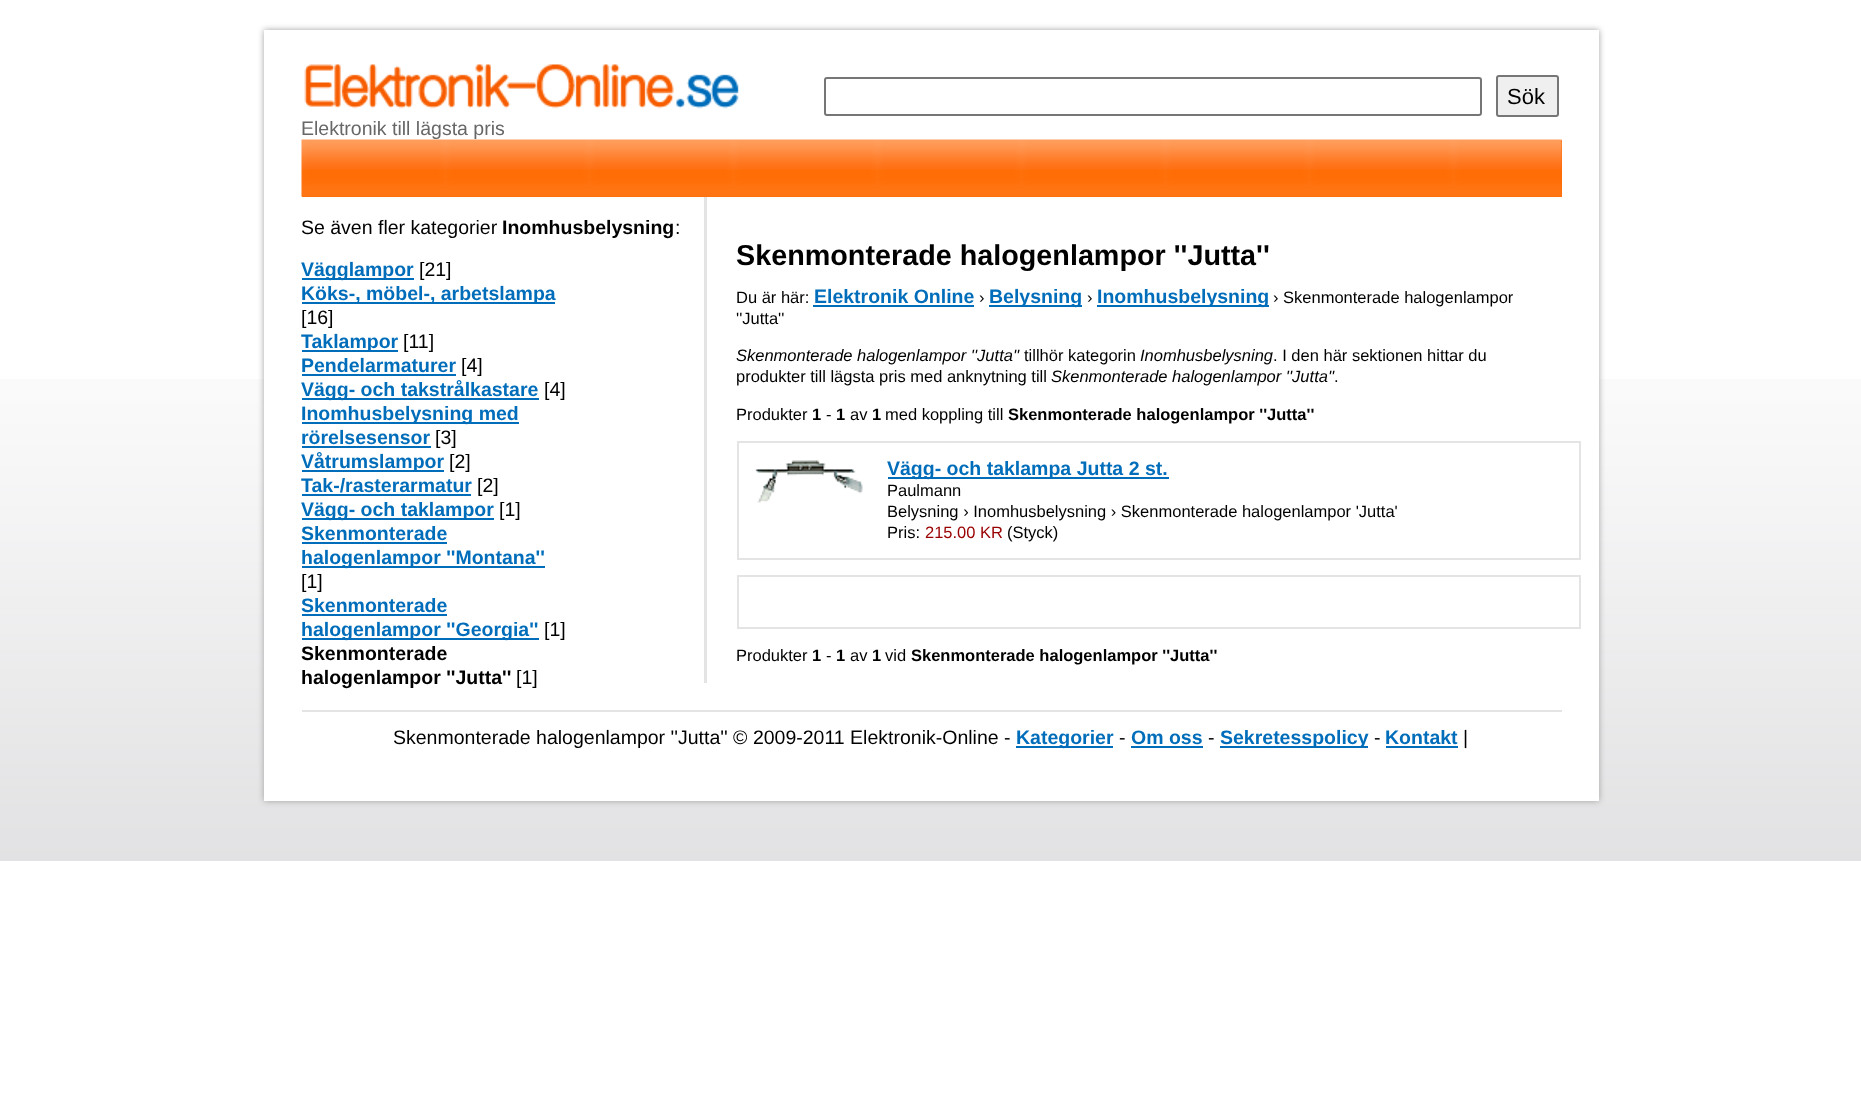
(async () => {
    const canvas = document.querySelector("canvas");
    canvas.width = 1861;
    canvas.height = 1103;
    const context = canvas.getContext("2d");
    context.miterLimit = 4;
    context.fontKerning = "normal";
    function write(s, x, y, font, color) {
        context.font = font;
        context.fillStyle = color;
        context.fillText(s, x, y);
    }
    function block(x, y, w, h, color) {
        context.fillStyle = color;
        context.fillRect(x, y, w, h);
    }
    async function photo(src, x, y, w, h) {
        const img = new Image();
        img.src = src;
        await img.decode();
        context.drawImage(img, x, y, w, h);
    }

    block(0, 0, 1861, 1103, "rgb(255, 255, 255)");
    await photo("media/1.png", 0, 379, 1861, 482);
    context.fillStyle = "rgb(161, 161, 161)";
    context.filter = "blur(3px)";
    context.beginPath();
    context.rect(264, 30, 1335, 771);
    context.fill();
    context.filter = "none";
    block(264, 30, 1335, 771, "rgb(255, 255, 255)");
    context.beginPath();
    context.roundRect(825, 78, 656, 37, 2);
    context.strokeStyle = "rgb(118, 118, 118)";
    context.lineWidth = 2;
    context.stroke();
    context.fillStyle = "rgb(239, 239, 239)";
    context.beginPath();
    context.roundRect(1497, 76, 61, 40, 2);
    context.fill();
    context.stroke();
    write("Sök", 1507, 104, "22px Liberation Sans", "rgb(0, 0, 0)");
    await photo("media/2.png", 304, 64, 435, 45);
    block(302, 140, 1260, 57, "rgb(255, 109, 6)");
    await photo("media/3.png", 301, 139, 1261, 58);
    write("Elektronik till lägsta pris", 301, 135, "19.5px Liberation Sans", "rgb(103, 103, 103)");
    write("Se även fler kategorier", 301, 234, "19.5px Liberation Sans", "rgb(0, 0, 0)");
    write("Inomhusbelysning", 502, 234, "bold 19.5px Liberation Sans", "rgb(0, 0, 0)");
    write(":", 675, 234, "19.5px Liberation Sans", "rgb(0, 0, 0)");
    block(302, 278, 112, 2, "rgb(0, 109, 186)");
    write("Vägglampor", 301, 276, "bold 19.5px Liberation Sans", "rgb(0, 109, 186)");
    write("[21]", 419, 276, "19.5px Liberation Sans", "rgb(0, 0, 0)");
    block(302, 302, 253, 2, "rgb(0, 109, 186)");
    write("Köks-, möbel-, arbetslampa", 301, 300, "bold 19.5px Liberation Sans", "rgb(0, 109, 186)");
    write("[16]", 301, 324, "19.5px Liberation Sans", "rgb(0, 0, 0)");
    block(302, 350, 96, 2, "rgb(0, 109, 186)");
    write("Taklampor", 301, 348, "bold 19.5px Liberation Sans", "rgb(0, 109, 186)");
    write("[11]", 403, 348, "19.5px Liberation Sans", "rgb(0, 0, 0)");
    write("Pendelarmaturer", 301, 372, "bold 19.5px Liberation Sans", "rgb(0, 109, 186)");
    block(302, 374, 154, 2, "rgb(0, 109, 186)");
    write("[4]", 461, 372, "19.5px Liberation Sans", "rgb(0, 0, 0)");
    block(302, 398, 237, 2, "rgb(0, 109, 186)");
    write("Vägg- och takstrålkastare", 301, 396, "bold 19.5px Liberation Sans", "rgb(0, 109, 186)");
    write("[4]", 544, 396, "19.5px Liberation Sans", "rgb(0, 0, 0)");
    block(302, 422, 217, 2, "rgb(0, 109, 186)");
    write("Inomhusbelysning med", 301, 420, "bold 19.5px Liberation Sans", "rgb(0, 109, 186)");
    write("rörelsesensor", 301, 444, "bold 19.5px Liberation Sans", "rgb(0, 109, 186)");
    block(302, 446, 129, 2, "rgb(0, 109, 186)");
    write("[3]", 435, 444, "19.5px Liberation Sans", "rgb(0, 0, 0)");
    block(302, 470, 142, 2, "rgb(0, 109, 186)");
    write("Våtrumslampor", 301, 468, "bold 19.5px Liberation Sans", "rgb(0, 109, 186)");
    write("[2]", 449, 468, "19.5px Liberation Sans", "rgb(0, 0, 0)");
    write("Tak-/rasterarmatur", 301, 492, "bold 19.5px Liberation Sans", "rgb(0, 109, 186)");
    block(302, 494, 169, 2, "rgb(0, 109, 186)");
    write("[2]", 477, 492, "19.5px Liberation Sans", "rgb(0, 0, 0)");
    block(302, 518, 192, 2, "rgb(0, 109, 186)");
    write("Vägg- och taklampor", 301, 516, "bold 19.5px Liberation Sans", "rgb(0, 109, 186)");
    write("[1]", 499, 516, "19.5px Liberation Sans", "rgb(0, 0, 0)");
    write("Skenmonterade", 301, 540, "bold 19.5px Liberation Sans", "rgb(0, 109, 186)");
    block(302, 542, 145, 2, "rgb(0, 109, 186)");
    block(302, 566, 243, 2, "rgb(0, 109, 186)");
    write("halogenlampor ''Montana''", 301, 564, "bold 19.5px Liberation Sans", "rgb(0, 109, 186)");
    write("[1]", 301, 588, "19.5px Liberation Sans", "rgb(0, 0, 0)");
    write("Skenmonterade", 301, 612, "bold 19.5px Liberation Sans", "rgb(0, 109, 186)");
    block(302, 614, 145, 2, "rgb(0, 109, 186)");
    block(302, 638, 237, 2, "rgb(0, 109, 186)");
    write("halogenlampor ''Georgia''", 301, 636, "bold 19.5px Liberation Sans", "rgb(0, 109, 186)");
    write("[1]", 544, 636, "19.5px Liberation Sans", "rgb(0, 0, 0)");
    write("Skenmonterade", 301, 660, "bold 19.5px Liberation Sans", "rgb(0, 0, 0)");
    write("halogenlampor ''Jutta''", 301, 684, "bold 19.5px Liberation Sans", "rgb(0, 0, 0)");
    write("[1]", 516, 684, "19.5px Liberation Sans", "rgb(0, 0, 0)");
    block(704, 197, 3, 486, "rgb(228, 228, 228)");
    write("Skenmonterade halogenlampor ''Jutta''", 736, 265, "bold 28.75px Liberation Sans", "rgb(0, 0, 0)");
    write("Du är här:", 736, 303, "16.5px Liberation Sans", "rgb(0, 0, 0)");
    write("Elektronik Online", 814, 303, "bold 19.5px Liberation Sans", "rgb(0, 109, 186)");
    block(813, 305, 161, 2, "rgb(0, 109, 186)");
    write("›", 979, 303, "16.5px Liberation Sans", "rgb(0, 0, 0)");
    block(989, 305, 93, 2, "rgb(0, 109, 186)");
    write("Belysning", 989, 303, "bold 19.5px Liberation Sans", "rgb(0, 109, 186)");
    write("›", 1087, 303, "16.5px Liberation Sans", "rgb(0, 0, 0)");
    block(1097, 305, 172, 2, "rgb(0, 109, 186)");
    write("Inomhusbelysning", 1097, 303, "bold 19.5px Liberation Sans", "rgb(0, 109, 186)");
    write("› Skenmonterade halogenlampor", 1273, 303, "16.5px Liberation Sans", "rgb(0, 0, 0)");
    write("''Jutta''", 736, 324, "16.5px Liberation Sans", "rgb(0, 0, 0)");
    write("Skenmonterade halogenlampor ''Jutta''", 736, 361, "italic 16.5px Liberation Sans", "rgb(0, 0, 0)");
    write("tillhör kategorin", 1024, 361, "16.5px Liberation Sans", "rgb(0, 0, 0)");
    write("Inomhusbelysning", 1140, 361, "italic 16.5px Liberation Sans", "rgb(0, 0, 0)");
    write(". I den här sektionen hittar du", 1273, 361, "16.5px Liberation Sans", "rgb(0, 0, 0)");
    write("produkter till lägsta pris med anknytning till", 736, 382, "16.5px Liberation Sans", "rgb(0, 0, 0)");
    write("Skenmonterade halogenlampor ''Jutta''", 1051, 382, "italic 16.5px Liberation Sans", "rgb(0, 0, 0)");
    write(".", 1334, 382, "16.5px Liberation Sans", "rgb(0, 0, 0)");
    write("Produkter", 736, 420, "16.5px Liberation Sans", "rgb(0, 0, 0)");
    write("1", 812, 420, "bold 16.5px Liberation Sans", "rgb(0, 0, 0)");
    write("-", 826, 420, "16.5px Liberation Sans", "rgb(0, 0, 0)");
    write("1", 836, 420, "bold 16.5px Liberation Sans", "rgb(0, 0, 0)");
    write("av", 850, 420, "16.5px Liberation Sans", "rgb(0, 0, 0)");
    write("1", 872, 420, "bold 16.5px Liberation Sans", "rgb(0, 0, 0)");
    write("med koppling till", 885, 420, "16.5px Liberation Sans", "rgb(0, 0, 0)");
    write("Skenmonterade halogenlampor ''Jutta''", 1008, 420, "bold 16.5px Liberation Sans", "rgb(0, 0, 0)");
    context.strokeStyle = "rgb(228, 228, 228)";
    context.strokeRect(738, 442, 842, 117);
    await photo("media/4.png", 755, 460, 108, 43);
    block(888, 477, 281, 2, "rgb(0, 109, 186)");
    write("Vägg- och taklampa Jutta 2 st.", 887, 475, "bold 19.5px Liberation Sans", "rgb(0, 109, 186)");
    write("Paulmann", 887, 496, "16.5px Liberation Sans", "rgb(0, 0, 0)");
    write("Belysning › Inomhusbelysning › Skenmonterade halogenlampor 'Jutta'", 887, 517, "16.5px Liberation Sans", "rgb(0, 0, 0)");
    write("Pris:", 887, 538, "16.5px Liberation Sans", "rgb(0, 0, 0)");
    write("215.00 KR", 925, 538, "16.5px Liberation Sans", "rgb(153, 0, 0)");
    write("(Styck)", 1007, 538, "16.5px Liberation Sans", "rgb(0, 0, 0)");
    context.strokeRect(738, 576, 842, 52);
    write("Produkter", 736, 661, "16.5px Liberation Sans", "rgb(0, 0, 0)");
    write("1", 812, 661, "bold 16.5px Liberation Sans", "rgb(0, 0, 0)");
    write("-", 826, 661, "16.5px Liberation Sans", "rgb(0, 0, 0)");
    write("1", 836, 661, "bold 16.5px Liberation Sans", "rgb(0, 0, 0)");
    write("av", 850, 661, "16.5px Liberation Sans", "rgb(0, 0, 0)");
    write("1", 872, 661, "bold 16.5px Liberation Sans", "rgb(0, 0, 0)");
    write("vid", 885, 661, "16.5px Liberation Sans", "rgb(0, 0, 0)");
    write("Skenmonterade halogenlampor ''Jutta''", 911, 661, "bold 16.5px Liberation Sans", "rgb(0, 0, 0)");
    block(302, 710, 1260, 2, "rgb(228, 228, 228)");
    write("Skenmonterade halogenlampor ''Jutta'' © 2009-2011 Elektronik-Online -", 393, 744, "19.5px Liberation Sans", "rgb(0, 0, 0)");
    block(1016, 746, 97, 2, "rgb(0, 109, 186)");
    write("Kategorier", 1016, 744, "bold 19.5px Liberation Sans", "rgb(0, 109, 186)");
    write("-", 1119, 744, "19.5px Liberation Sans", "rgb(0, 0, 0)");
    write("Om oss", 1131, 744, "bold 19.5px Liberation Sans", "rgb(0, 109, 186)");
    block(1131, 746, 72, 2, "rgb(0, 109, 186)");
    write("-", 1208, 744, "19.5px Liberation Sans", "rgb(0, 0, 0)");
    block(1220, 746, 148, 2, "rgb(0, 109, 186)");
    write("Sekretesspolicy", 1220, 744, "bold 19.5px Liberation Sans", "rgb(0, 109, 186)");
    write("-", 1374, 744, "19.5px Liberation Sans", "rgb(0, 0, 0)");
    write("Kontakt", 1385, 744, "bold 19.5px Liberation Sans", "rgb(0, 109, 186)");
    block(1386, 746, 72, 2, "rgb(0, 109, 186)");
    write("|", 1463, 744, "19.5px Liberation Sans", "rgb(0, 0, 0)");
})();
